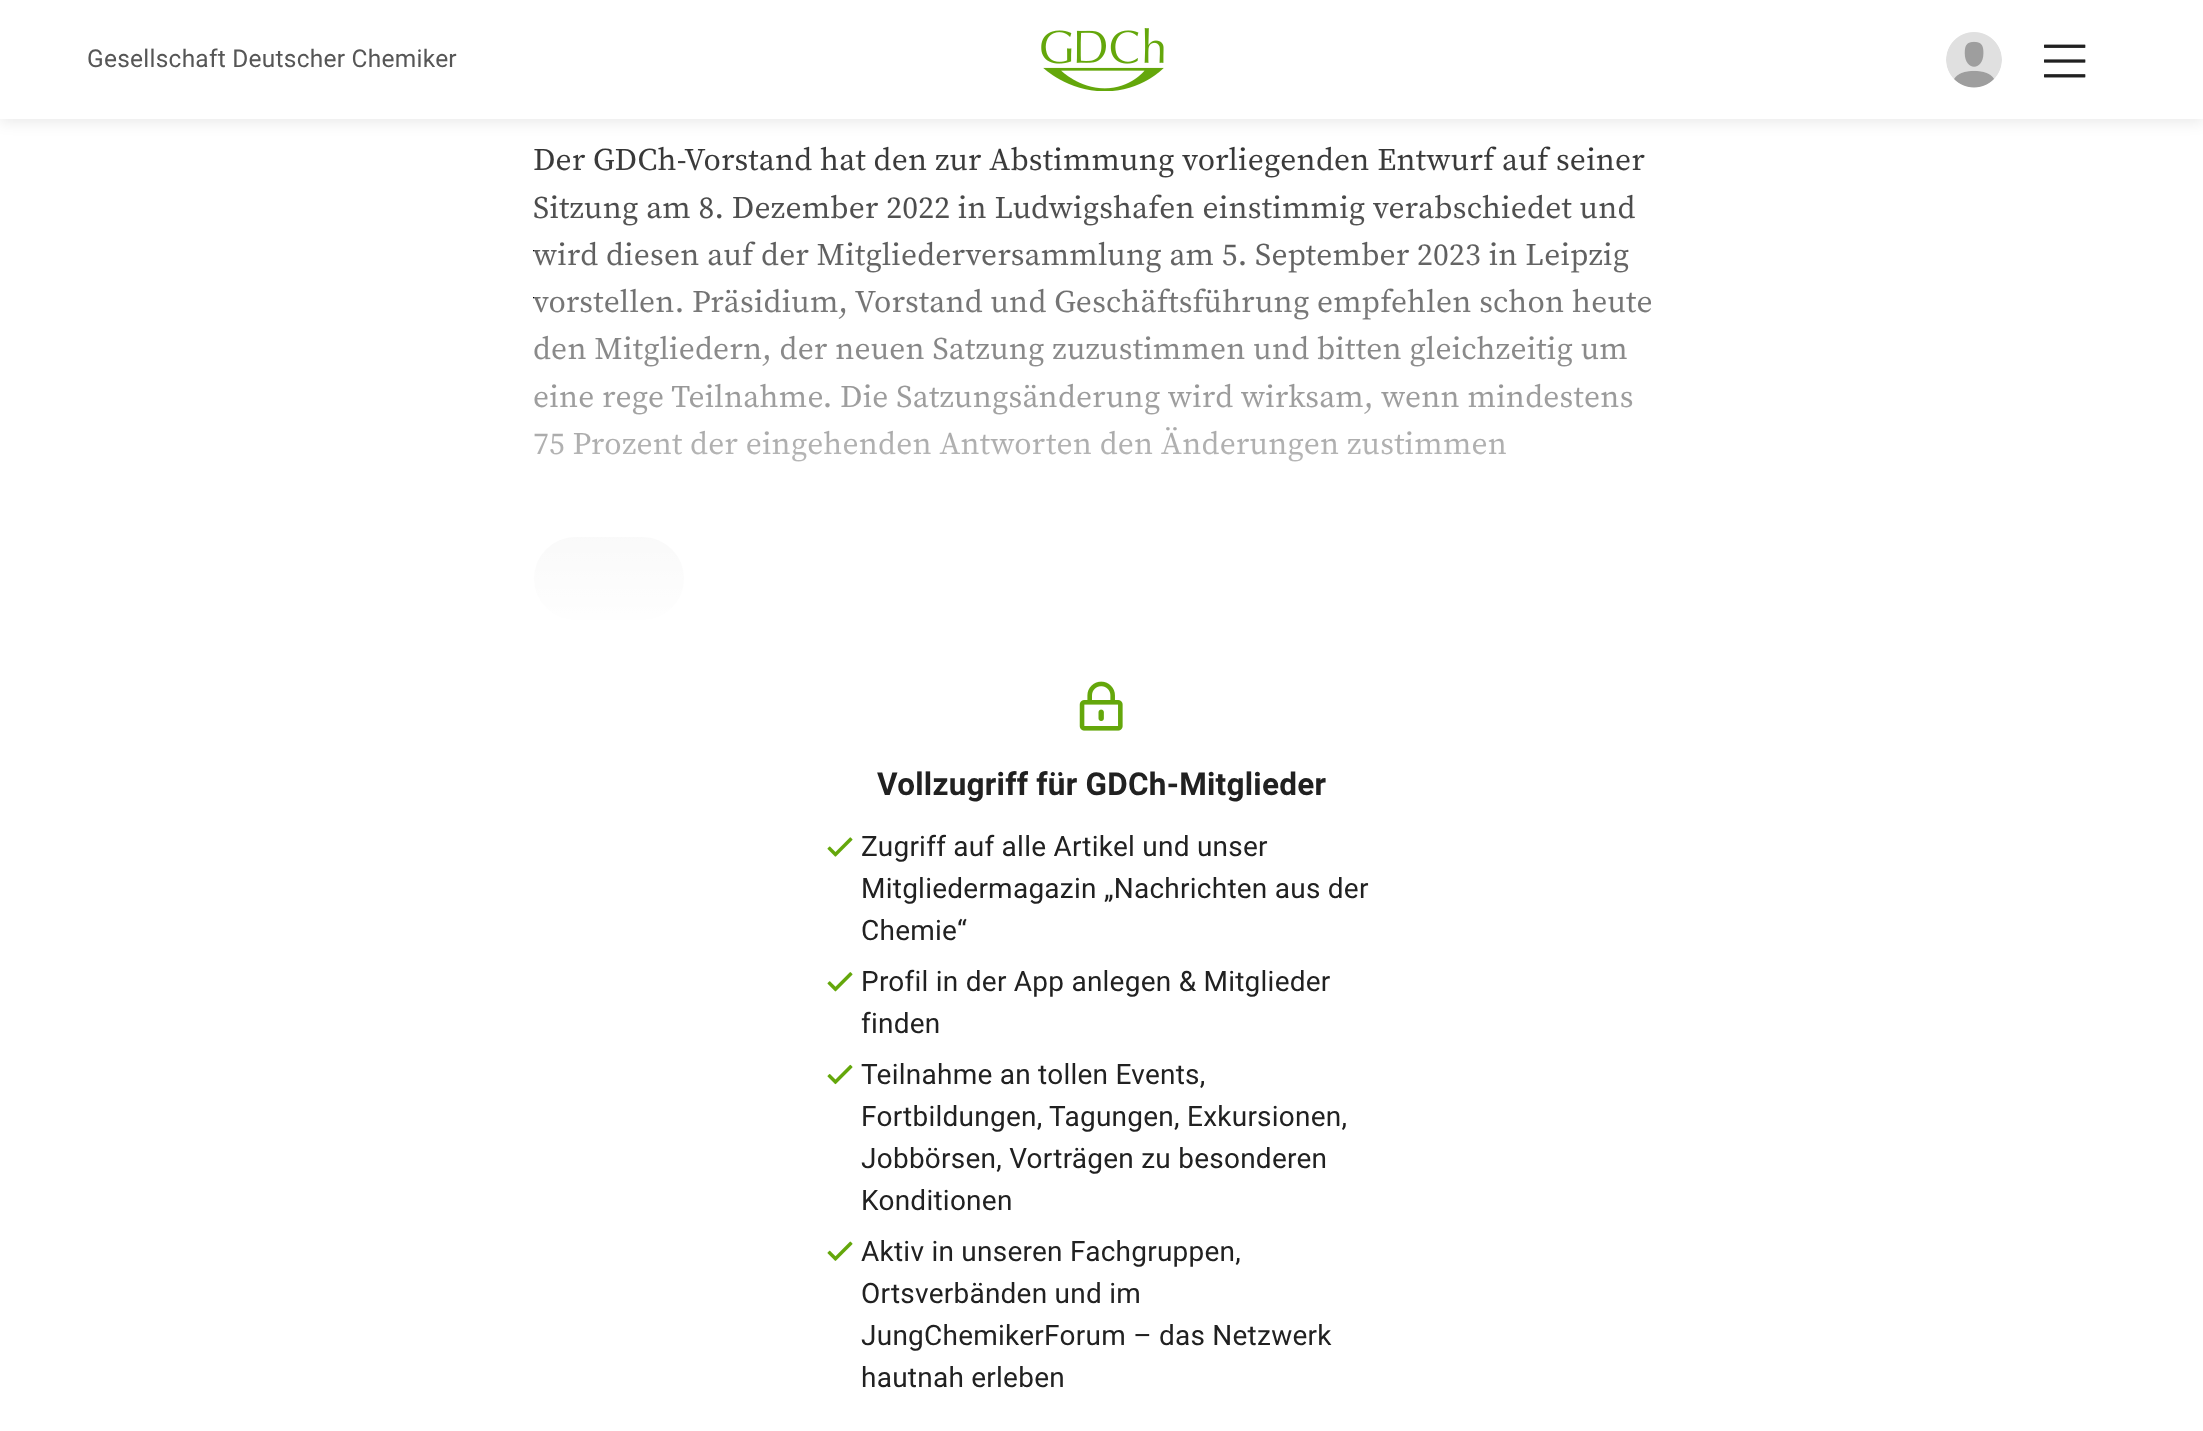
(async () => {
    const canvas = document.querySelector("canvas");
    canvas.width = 2203;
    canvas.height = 1431;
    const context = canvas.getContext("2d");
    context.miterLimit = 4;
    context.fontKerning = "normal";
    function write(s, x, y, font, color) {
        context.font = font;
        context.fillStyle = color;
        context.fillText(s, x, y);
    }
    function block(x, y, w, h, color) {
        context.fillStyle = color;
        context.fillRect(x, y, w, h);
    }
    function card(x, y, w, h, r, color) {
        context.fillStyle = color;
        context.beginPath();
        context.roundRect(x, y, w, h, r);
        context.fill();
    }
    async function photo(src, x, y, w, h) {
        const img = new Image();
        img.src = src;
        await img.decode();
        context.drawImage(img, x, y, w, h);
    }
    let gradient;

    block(0, 0, 2203, 1431, "rgb(255, 255, 255)");
    context.fillStyle = "rgba(0, 0, 0, 0.08)";
    context.filter = "blur(7px)";
    context.beginPath();
    context.rect(0, 4, 2203, 119);
    context.fill();
    context.filter = "none";
    block(0, 0, 2203, 119, "rgb(255, 255, 255)");
    context.letterSpacing = "0.25px";
    write("Gesellschaft Deutscher Chemiker", 87, 67, "24.5px Roboto", "rgb(86, 86, 86)");
    await photo("media/1.png", 1041, 28, 123, 63);
    await photo("media/2.png", 1946, 32, 56, 56);
    await photo("media/3.png", 2044, 44, 42, 34);
    write("Der GDCh-Vorstand hat den zur Abstimmung vorliegenden Entwurf auf seiner", 533, 170, "31.5px Source Serif Pro", "rgb(0, 0, 0)");
    write("Sitzung am 8. Dezember 2022 in Ludwigshafen einstimmig verabschiedet und", 533, 218, "31.5px Source Serif Pro", "rgb(0, 0, 0)");
    write("wird diesen auf der Mitgliederversammlung am 5. September 2023 in Leipzig", 533, 265, "31.5px Source Serif Pro", "rgb(0, 0, 0)");
    write("vorstellen. Präsidium, Vorstand und Geschäftsführung empfehlen schon heute", 533, 312, "31.5px Source Serif Pro", "rgb(0, 0, 0)");
    write("den Mitgliedern, der neuen Satzung zuzustimmen und bitten gleichzeitig um", 533, 359, "31.5px Source Serif Pro", "rgb(0, 0, 0)");
    write("eine rege Teilnahme. Die Satzungsänderung wird wirksam, wenn mindestens", 533, 407, "31.5px Source Serif Pro", "rgb(0, 0, 0)");
    write("75 Prozent der eingehenden Antworten den Änderungen zustimmen", 533, 454, "31.5px Source Serif Pro", "rgb(0, 0, 0)");
    card(534, 537, 150, 83, 41.5, "rgb(221, 221, 221)");
    gradient = context.createLinearGradient(1103, 21, 1103, 634);
    gradient.addColorStop(0, "rgba(255, 255, 255, 0)");
    gradient.addColorStop(1, "rgb(255, 255, 255)");
    context.fillStyle = gradient;
    context.fillRect(534, 146, 1118, 474);
    await photo("media/4.png", 1079, 681, 44, 50);
    write("Vollzugriff für GDCh-Mitglieder", 877, 795, "bold 31.5px Roboto", "rgb(33, 33, 33)");
    await photo("media/5.png", 827, 837, 26, 20);
    write("Zugriff auf alle Artikel und unser", 861, 856, "28px Roboto", "rgb(33, 33, 33)");
    write("Mitgliedermagazin „Nachrichten aus der", 861, 898, "28px Roboto", "rgb(33, 33, 33)");
    write("Chemie“", 861, 940, "28px Roboto", "rgb(33, 33, 33)");
    await photo("media/6.png", 827, 972, 26, 20);
    write("Profil in der App anlegen & Mitglieder", 861, 991, "28px Roboto", "rgb(33, 33, 33)");
    write("finden", 861, 1033, "28px Roboto", "rgb(33, 33, 33)");
    await photo("media/7.png", 827, 1064, 26, 21);
    write("Teilnahme an tollen Events,", 861, 1084, "28px Roboto", "rgb(33, 33, 33)");
    write("Fortbildungen, Tagungen, Exkursionen,", 861, 1126, "28px Roboto", "rgb(33, 33, 33)");
    write("Jobbörsen, Vorträgen zu besonderen", 861, 1168, "28px Roboto", "rgb(33, 33, 33)");
    write("Konditionen", 861, 1210, "28px Roboto", "rgb(33, 33, 33)");
    await photo("media/8.png", 827, 1241, 26, 20);
    write("Aktiv in unseren Fachgruppen,", 861, 1261, "28px Roboto", "rgb(33, 33, 33)");
    write("Ortsverbänden und im", 861, 1303, "28px Roboto", "rgb(33, 33, 33)");
    write("JungChemikerForum – das Netzwerk", 861, 1345, "28px Roboto", "rgb(33, 33, 33)");
    write("hautnah erleben", 861, 1387, "28px Roboto", "rgb(33, 33, 33)");
})();
